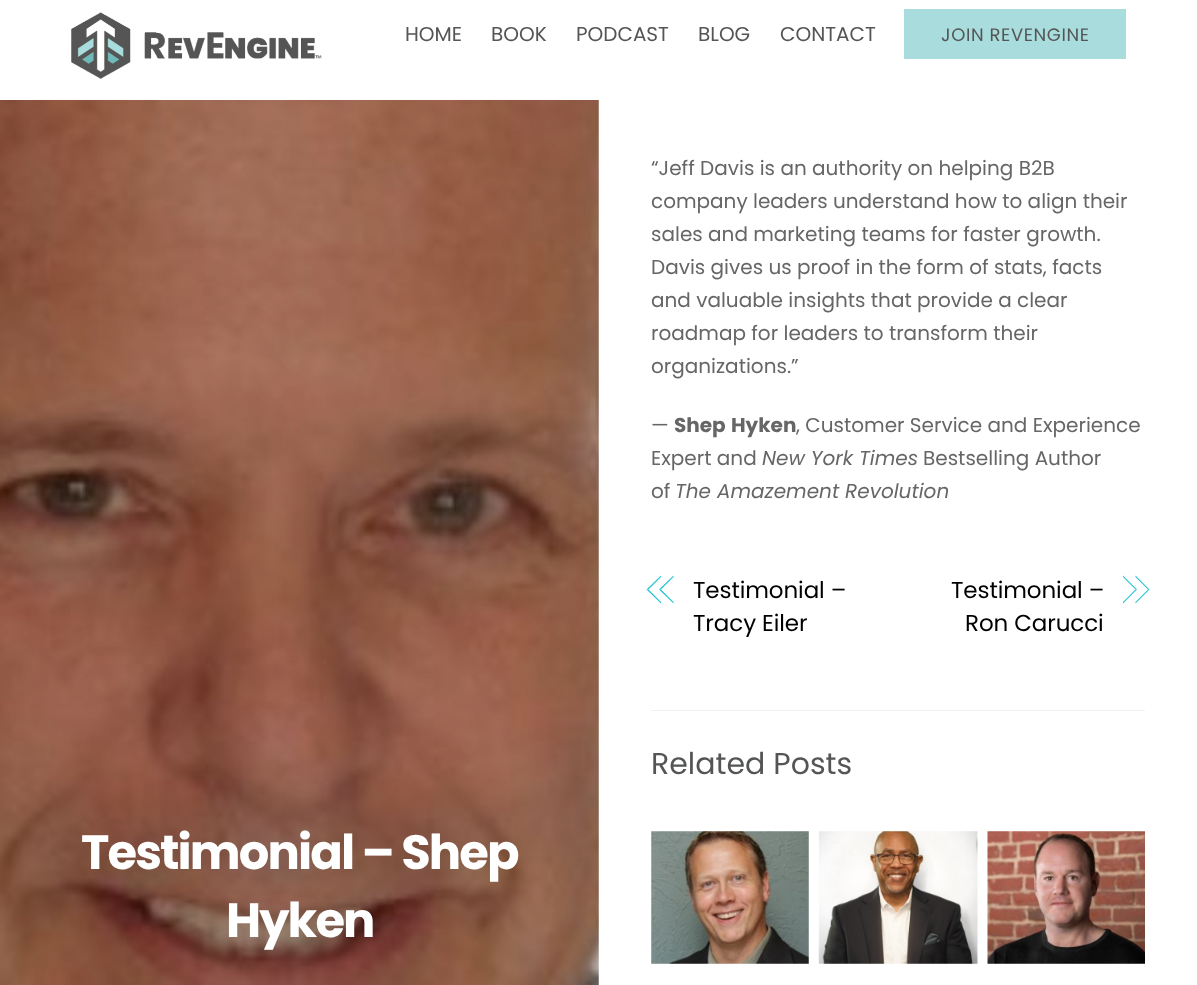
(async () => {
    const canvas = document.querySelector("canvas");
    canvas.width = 1197;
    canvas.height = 985;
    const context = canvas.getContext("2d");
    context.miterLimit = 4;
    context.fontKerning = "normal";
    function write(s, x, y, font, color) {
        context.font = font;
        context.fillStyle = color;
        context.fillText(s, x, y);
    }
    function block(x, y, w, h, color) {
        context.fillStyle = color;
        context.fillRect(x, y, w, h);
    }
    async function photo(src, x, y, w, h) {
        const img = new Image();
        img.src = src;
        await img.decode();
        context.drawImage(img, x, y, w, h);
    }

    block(0, 0, 1197, 985, "rgb(255, 255, 255)");
    await photo("media/1.png", 71, 12, 251, 67);
    write("HOME", 405, 41, "20px Poppins", "rgb(84, 85, 85)");
    write("BOOK", 491, 41, "20px Poppins", "rgb(84, 85, 85)");
    write("PODCAST", 576, 41, "20px Poppins", "rgb(84, 85, 85)");
    write("BLOG", 698, 41, "20px Poppins", "rgb(84, 85, 85)");
    write("CONTACT", 780, 41, "20px Poppins", "rgb(84, 85, 85)");
    block(904, 9, 222, 50, "rgb(169, 220, 220)");
    context.letterSpacing = "0.6px";
    write("JOIN REVENGINE", 941, 41, "18px Poppins", "rgb(84, 85, 85)");
    context.letterSpacing = "0px";
    write("“Jeff Davis is an authority on helping B2B", 651, 175, "20px Poppins", "rgb(102, 102, 102)");
    write("company leaders understand how to align their", 651, 208, "20px Poppins", "rgb(102, 102, 102)");
    write("sales and marketing teams for faster growth.", 651, 241, "20px Poppins", "rgb(102, 102, 102)");
    write("Davis gives us proof in the form of stats, facts", 651, 274, "20px Poppins", "rgb(102, 102, 102)");
    write("and valuable insights that provide a clear", 651, 307, "20px Poppins", "rgb(102, 102, 102)");
    write("roadmap for leaders to transform their", 651, 340, "20px Poppins", "rgb(102, 102, 102)");
    write("organizations.”", 651, 373, "20px Poppins", "rgb(102, 102, 102)");
    write("—", 651, 432, "20px Poppins", "rgb(102, 102, 102)");
    write("Shep", 674, 432, "bold 20px Poppins", "rgb(102, 102, 102)");
    write("Hyken", 731, 432, "bold 20px Poppins", "rgb(102, 102, 102)");
    write(", Customer Service and Experience", 796, 432, "20px Poppins", "rgb(102, 102, 102)");
    write("Expert and", 651, 465, "20px Poppins", "rgb(102, 102, 102)");
    write("New York Times", 762, 465, "italic 20px Poppins", "rgb(102, 102, 102)");
    write("Bestselling Author", 923, 465, "20px Poppins", "rgb(102, 102, 102)");
    write("of", 651, 498, "20px Poppins", "rgb(102, 102, 102)");
    write("The Amazement Revolution", 675, 498, "italic 20px Poppins", "rgb(102, 102, 102)");
    context.fillStyle = "rgb(35, 195, 209)";
    context.beginPath();
    context.moveTo(646.5, 589.5);
    context.lineTo(661, 575.5);
    context.lineTo(661, 577);
    context.lineTo(648.5, 589.5);
    context.closePath();
    context.fill();
    context.beginPath();
    context.moveTo(661, 603.5);
    context.lineTo(646.5, 589.5);
    context.lineTo(648.5, 589.5);
    context.lineTo(661, 602);
    context.closePath();
    context.fill();
    context.beginPath();
    context.moveTo(659, 589.5);
    context.lineTo(673.5, 575.5);
    context.lineTo(673.5, 577);
    context.lineTo(661, 589.5);
    context.closePath();
    context.fill();
    context.beginPath();
    context.moveTo(673.5, 603.5);
    context.lineTo(659, 589.5);
    context.lineTo(661, 589.5);
    context.lineTo(673.5, 602);
    context.closePath();
    context.fill();
    context.letterSpacing = "-0.1px";
    write("Testimonial –", 693, 598, "23px Poppins", "rgb(0, 0, 0)");
    write("Tracy Eiler", 693, 631, "23px Poppins", "rgb(0, 0, 0)");
    write("Testimonial –", 951, 598, "23px Poppins", "rgb(0, 0, 0)");
    context.fillStyle = "rgb(35, 195, 209)";
    context.beginPath();
    context.moveTo(1135.5, 575.5);
    context.lineTo(1149.5, 589.5);
    context.lineTo(1148, 589.5);
    context.lineTo(1135.5, 577);
    context.closePath();
    context.fill();
    context.beginPath();
    context.moveTo(1149.5, 589.5);
    context.lineTo(1135.5, 603.5);
    context.lineTo(1135.5, 602);
    context.lineTo(1148, 589.5);
    context.closePath();
    context.fill();
    context.beginPath();
    context.moveTo(1123, 575.5);
    context.lineTo(1137, 589.5);
    context.lineTo(1135.5, 589.5);
    context.lineTo(1123, 577);
    context.closePath();
    context.fill();
    context.beginPath();
    context.moveTo(1137, 589.5);
    context.lineTo(1123, 603.5);
    context.lineTo(1123, 602);
    context.lineTo(1135.5, 589.5);
    context.closePath();
    context.fill();
    write("Ron Carucci", 965, 631, "23px Poppins", "rgb(0, 0, 0)");
    block(651, 710, 494, 1, "rgb(242, 242, 242)");
    context.letterSpacing = "0px";
    write("Related Posts", 651, 774, "30px Poppins", "rgb(84, 85, 85)");
    await photo("media/2.png", 651, 831, 158, 133);
    await photo("media/3.png", 818, 831, 160, 133);
    await photo("media/4.png", 987, 831, 158, 133);
    await photo("media/5.png", 0, 100, 599, 885);
    context.letterSpacing = "-1.9px";
    write("Testimonial – Shep", 81, 869, "bold 48px Poppins", "rgb(255, 255, 255)");
    write("Hyken", 226, 937, "bold 48px Poppins", "rgb(255, 255, 255)");
})();
